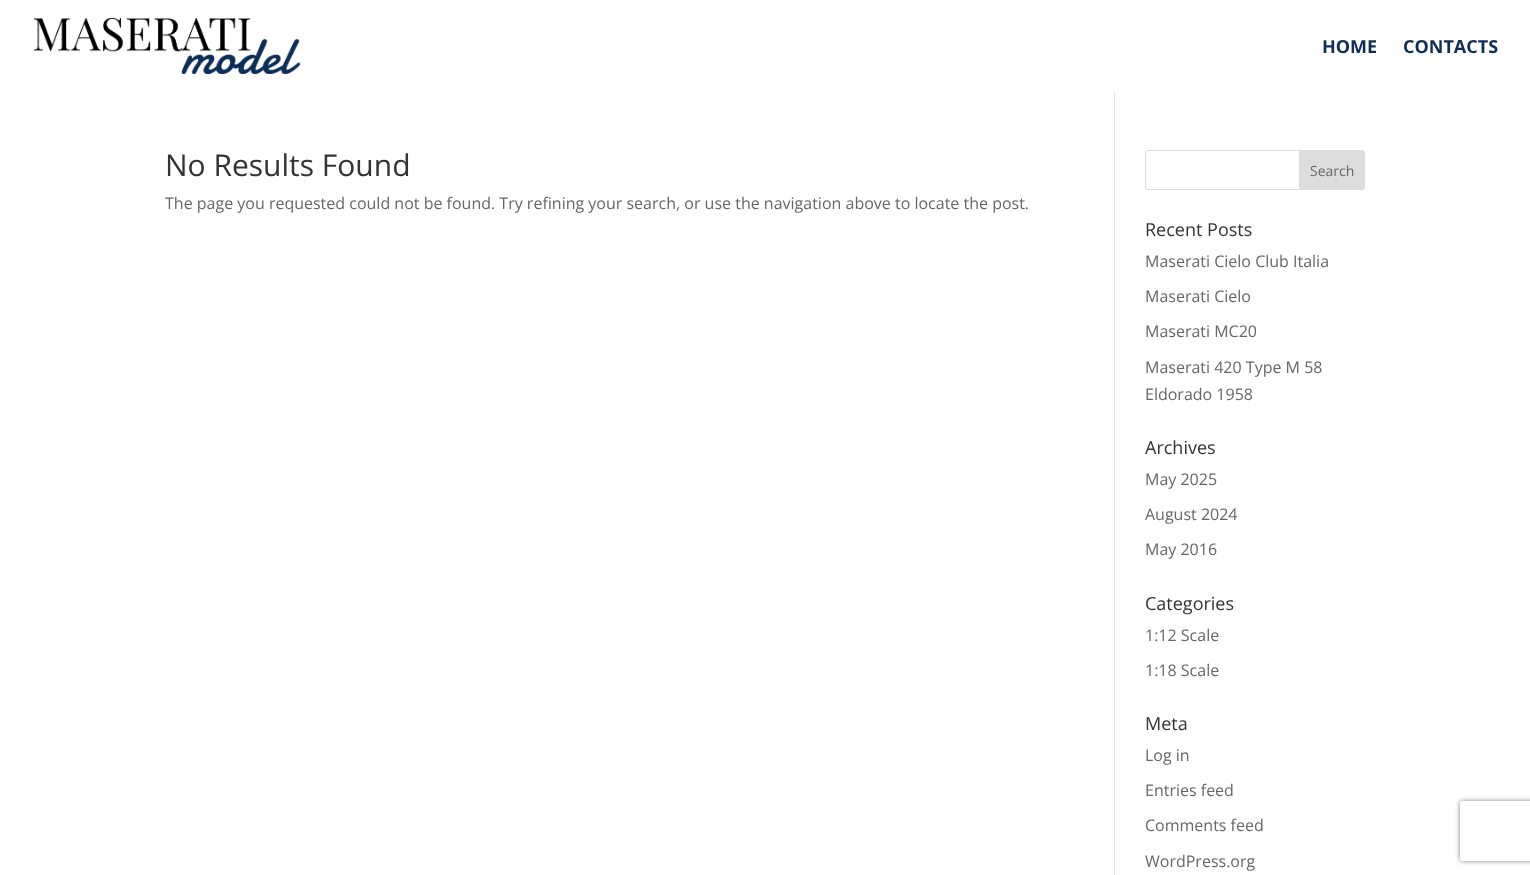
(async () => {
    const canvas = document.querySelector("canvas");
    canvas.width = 1530;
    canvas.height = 875;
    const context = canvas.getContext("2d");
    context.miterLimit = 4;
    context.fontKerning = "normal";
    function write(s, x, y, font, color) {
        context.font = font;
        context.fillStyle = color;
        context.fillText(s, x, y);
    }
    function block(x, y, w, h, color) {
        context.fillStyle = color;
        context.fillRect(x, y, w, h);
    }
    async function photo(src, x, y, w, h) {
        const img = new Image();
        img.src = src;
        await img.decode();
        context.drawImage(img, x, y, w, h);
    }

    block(0, 0, 1530, 875, "rgb(255, 255, 255)");
    await photo("media/1.png", 34, 18, 266, 56);
    write("HOME", 1322, 53, "bold 18px Open Sans", "rgb(12, 46, 89)");
    write("CONTACTS", 1403, 53, "bold 18px Open Sans", "rgb(12, 46, 89)");
    block(1114, 92, 1, 783, "rgb(226, 226, 226)");
    write("No Results Found", 165, 176, "30px Open Sans", "rgb(51, 51, 51)");
    write("The page you requested could not be found. Try refining your search, or use the navigation above to locate the post.", 165, 209, "16px Open Sans", "rgb(102, 102, 102)");
    context.beginPath();
    context.roundRect(1145.5, 150.5, 219, 39, 2.5);
    context.strokeStyle = "rgb(221, 221, 221)";
    context.stroke();
    context.fillStyle = "rgb(221, 221, 221)";
    context.beginPath();
    context.roundRect(1299.5, 150.5, 65, 39, [0, 2.5, 2.5, 0]);
    context.fill();
    context.stroke();
    write("Search", 1310, 176, "14px Open Sans", "rgb(102, 102, 102)");
    write("Recent Posts", 1145, 236, "18px Open Sans", "rgb(51, 51, 51)");
    write("Maserati Cielo Club Italia", 1145, 267, "16px Open Sans", "rgb(102, 102, 102)");
    write("Maserati Cielo", 1145, 302, "16px Open Sans", "rgb(102, 102, 102)");
    write("Maserati MC20", 1145, 337, "16px Open Sans", "rgb(102, 102, 102)");
    write("Maserati 420 Type M 58", 1145, 373, "16px Open Sans", "rgb(102, 102, 102)");
    write("Eldorado 1958", 1145, 400, "16px Open Sans", "rgb(102, 102, 102)");
    write("Archives", 1145, 454, "18px Open Sans", "rgb(51, 51, 51)");
    write("May 2025", 1145, 485, "16px Open Sans", "rgb(102, 102, 102)");
    write("August 2024", 1145, 520, "16px Open Sans", "rgb(102, 102, 102)");
    write("May 2016", 1145, 555, "16px Open Sans", "rgb(102, 102, 102)");
    write("Categories", 1145, 610, "18px Open Sans", "rgb(51, 51, 51)");
    write("1:12 Scale", 1145, 641, "16px Open Sans", "rgb(102, 102, 102)");
    write("1:18 Scale", 1145, 676, "16px Open Sans", "rgb(102, 102, 102)");
    write("Meta", 1145, 730, "18px Open Sans", "rgb(51, 51, 51)");
    write("Log in", 1145, 761, "16px Open Sans", "rgb(102, 102, 102)");
    write("Entries feed", 1145, 796, "16px Open Sans", "rgb(102, 102, 102)");
    write("Comments feed", 1145, 831, "16px Open Sans", "rgb(102, 102, 102)");
    write("WordPress.org", 1145, 867, "16px Open Sans", "rgb(102, 102, 102)");
    context.save();
    context.beginPath();
    context.moveTo(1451, 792);
    context.lineTo(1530, 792);
    context.lineTo(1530, 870);
    context.lineTo(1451, 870);
    context.closePath();
    context.moveTo(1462, 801);
    context.lineTo(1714, 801);
    context.bezierCurveTo(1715, 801, 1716, 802, 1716, 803);
    context.lineTo(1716, 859);
    context.bezierCurveTo(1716, 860, 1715, 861, 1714, 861);
    context.lineTo(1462, 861);
    context.bezierCurveTo(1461, 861, 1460, 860, 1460, 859);
    context.lineTo(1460, 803);
    context.bezierCurveTo(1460, 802, 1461, 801, 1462, 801);
    context.closePath();
    context.clip("evenodd");
    context.fillStyle = "rgb(128, 128, 128)";
    context.filter = "blur(2.5px)";
    context.beginPath();
    context.roundRect(1460, 801, 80, 60, 2);
    context.fill();
    context.filter = "none";
    context.restore();
})();
